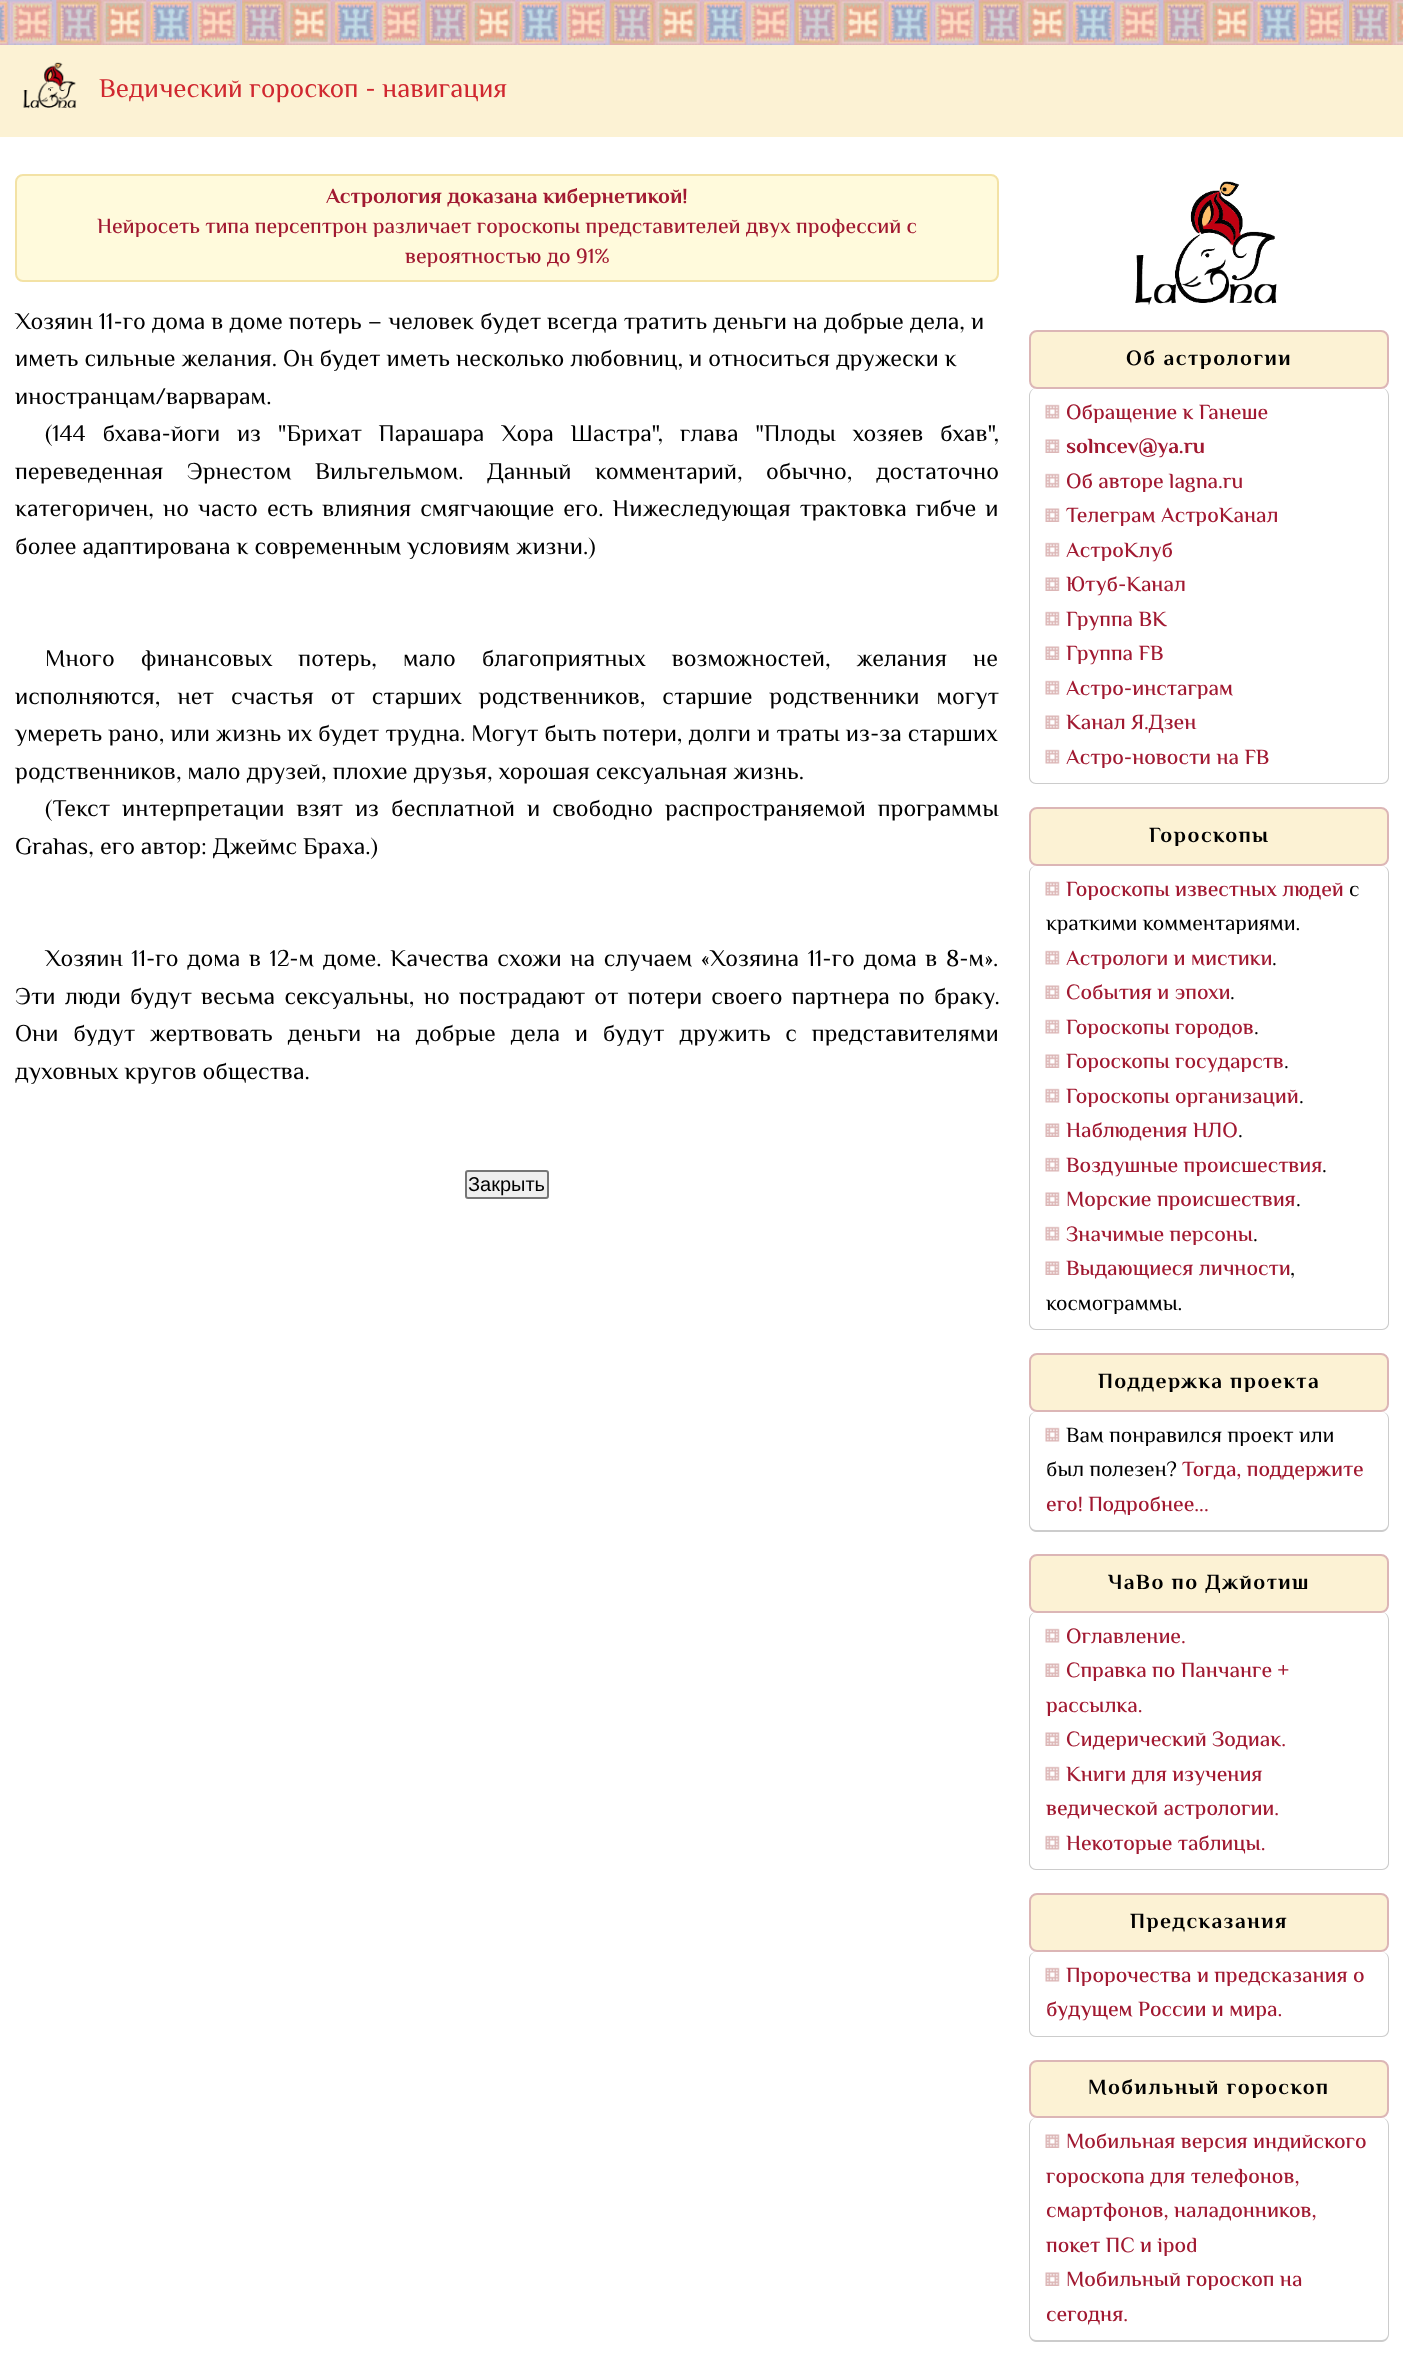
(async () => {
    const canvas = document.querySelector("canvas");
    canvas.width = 1403;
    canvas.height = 2359;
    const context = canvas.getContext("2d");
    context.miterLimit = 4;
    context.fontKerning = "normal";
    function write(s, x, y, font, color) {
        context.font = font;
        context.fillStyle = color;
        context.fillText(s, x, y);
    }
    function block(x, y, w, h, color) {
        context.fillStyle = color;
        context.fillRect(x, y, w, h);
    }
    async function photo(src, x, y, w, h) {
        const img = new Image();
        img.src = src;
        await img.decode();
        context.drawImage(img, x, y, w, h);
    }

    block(0, 0, 1403, 2359, "rgb(255, 255, 255)");
    await photo("media/1.png", 0, 0, 1403, 45);
    block(0, 45, 1403, 92, "rgb(252, 242, 212)");
    await photo("media/2.png", 23, 62, 54, 47);
    write("Ведический гороскоп - навигация", 99, 97, "27px El Messiri", "rgb(208, 40, 48)");
    context.fillStyle = "rgb(255, 250, 220)";
    context.beginPath();
    context.roundRect(16, 175, 982, 106, 7);
    context.fill();
    context.strokeStyle = "rgb(243, 226, 165)";
    context.lineWidth = 2;
    context.stroke();
    write("Астрология доказана кибернетикой!", 326, 203, "bold 21.6px El Messiri", "rgb(161, 25, 49)");
    write("Нейросеть типа персептрон различает гороскопы представителей двух профессий с", 97, 233, "500 21.6px El Messiri", "rgb(161, 25, 49)");
    write("вероятностью до 91%", 405, 263, "500 21.6px El Messiri", "rgb(161, 25, 49)");
    write("Хозяин 11-го дома в доме потерь – человек будет всегда тратить деньги на добрые дела, и", 15, 329, "24px El Messiri", "rgb(0, 0, 0)");
    write("иметь сильные желания. Он будет иметь несколько любовниц, и относиться дружески к", 15, 366, "24px El Messiri", "rgb(0, 0, 0)");
    write("иностранцам/варварам.", 15, 404, "24px El Messiri", "rgb(0, 0, 0)");
    context.wordSpacing = "10.75px";
    write("(144 бхава-йоги из \"Брихат Парашара Хора Шастра\", глава \"Плоды хозяев бхав\",", 45, 441, "24px El Messiri", "rgb(0, 0, 0)");
    context.wordSpacing = "17.5px";
    write("переведенная Эрнестом Вильгельмом. Данный комментарий, обычно, достаточно", 15, 479, "24px El Messiri", "rgb(0, 0, 0)");
    context.wordSpacing = "3.1px";
    write("категоричен, но часто есть влияния смягчающие его. Нижеследующая трактовка гибче и", 15, 516, "24px El Messiri", "rgb(0, 0, 0)");
    context.wordSpacing = "0px";
    write("более адаптирована к современным условиям жизни.)", 15, 554, "24px El Messiri", "rgb(0, 0, 0)");
    context.wordSpacing = "20px";
    write("Много финансовых потерь, мало благоприятных возможностей, желания не", 45, 666, "24px El Messiri", "rgb(0, 0, 0)");
    context.wordSpacing = "11px";
    write("исполняются, нет счастья от старших родственников, старшие родственники могут", 15, 704, "24px El Messiri", "rgb(0, 0, 0)");
    context.wordSpacing = "0px";
    write("умереть рано, или жизнь их будет трудна. Могут быть потери, долги и траты из-за старших", 15, 741, "24px El Messiri", "rgb(0, 0, 0)");
    write("родственников, мало друзей, плохие друзья, хорошая сексуальная жизнь.", 15, 779, "24px El Messiri", "rgb(0, 0, 0)");
    context.wordSpacing = "6px";
    write("(Текст интерпретации взят из бесплатной и свободно распространяемой программы", 45, 816, "24px El Messiri", "rgb(0, 0, 0)");
    context.wordSpacing = "0px";
    write("Grahas, его автор: Джеймс Браха.)", 15, 854, "24px El Messiri", "rgb(0, 0, 0)");
    context.wordSpacing = "2.6px";
    write("Хозяин 11-го дома в 12-м доме. Качества схожи на случаем «Хозяина 11-го дома в 8-м».", 45, 966, "24px El Messiri", "rgb(0, 0, 0)");
    context.wordSpacing = "3.25px";
    write("Эти люди будут весьма сексуальны, но пострадают от потери своего партнера по браку.", 15, 1004, "24px El Messiri", "rgb(0, 0, 0)");
    context.wordSpacing = "8.75px";
    write("Они будут жертвовать деньги на добрые дела и будут дружить с представителями", 15, 1041, "24px El Messiri", "rgb(0, 0, 0)");
    context.wordSpacing = "0px";
    write("духовных кругов общества.", 15, 1079, "24px El Messiri", "rgb(0, 0, 0)");
    context.fillStyle = "rgb(239, 239, 239)";
    context.beginPath();
    context.roundRect(466, 1171, 82, 27, 2);
    context.fill();
    context.strokeStyle = "rgb(118, 118, 118)";
    context.stroke();
    write("Закрыть", 468, 1191, "20px Liberation Sans", "rgb(0, 0, 0)");
    await photo("media/3.png", 1135, 181, 142, 124);
    context.fillStyle = "rgb(252, 242, 212)";
    context.beginPath();
    context.roundRect(1030, 331, 358, 57, 7);
    context.fill();
    context.strokeStyle = "rgb(220, 182, 182)";
    context.stroke();
    context.letterSpacing = "1.5px";
    write("Об астрологии", 1126, 365, "bold 21.6px El Messiri", "rgb(0, 0, 0)");
    context.fillStyle = "rgb(204, 204, 204)";
    context.beginPath();
    context.moveTo(1036, 388);
    context.lineTo(1382, 388);
    context.bezierCurveTo(1386, 388, 1389, 392, 1389, 396);
    context.lineTo(1389, 777);
    context.bezierCurveTo(1389, 781, 1386, 784, 1382, 784);
    context.lineTo(1036, 784);
    context.bezierCurveTo(1032, 784, 1029, 781, 1029, 777);
    context.lineTo(1029, 396);
    context.bezierCurveTo(1029, 392, 1032, 388, 1036, 388);
    context.closePath();
    context.moveTo(1036, 388);
    context.lineTo(1382, 388);
    context.bezierCurveTo(1385, 388, 1388, 392, 1388, 396);
    context.lineTo(1388, 777);
    context.bezierCurveTo(1388, 780, 1385, 783, 1382, 783);
    context.lineTo(1036, 783);
    context.bezierCurveTo(1033, 783, 1030, 780, 1030, 777);
    context.lineTo(1030, 396);
    context.bezierCurveTo(1030, 392, 1033, 388, 1036, 388);
    context.closePath();
    context.fill("evenodd");
    await photo("media/4.png", 1045, 404, 15, 15);
    context.letterSpacing = "0px";
    write("Обращение к Ганеше", 1066, 419, "500 21.6px El Messiri", "rgb(161, 25, 49)");
    await photo("media/5.png", 1045, 439, 15, 14);
    write("solncev@ya.ru", 1066, 453, "bold 21.6px El Messiri", "rgb(161, 25, 49)");
    await photo("media/4.png", 1045, 473, 15, 15);
    write("Об авторе lagna.ru", 1066, 488, "500 21.6px El Messiri", "rgb(161, 25, 49)");
    await photo("media/5.png", 1045, 508, 15, 14);
    write("Телеграм АстроКанал", 1066, 522, "500 21.6px El Messiri", "rgb(161, 25, 49)");
    await photo("media/4.png", 1045, 542, 15, 15);
    write("АстроКлуб", 1066, 557, "500 21.6px El Messiri", "rgb(161, 25, 49)");
    await photo("media/5.png", 1045, 577, 15, 14);
    write("Ютуб-Канал", 1066, 591, "500 21.6px El Messiri", "rgb(161, 25, 49)");
    await photo("media/4.png", 1045, 611, 15, 15);
    write("Группа ВК", 1066, 626, "500 21.6px El Messiri", "rgb(161, 25, 49)");
    await photo("media/5.png", 1045, 646, 15, 14);
    write("Группа FB", 1066, 660, "500 21.6px El Messiri", "rgb(161, 25, 49)");
    await photo("media/4.png", 1045, 680, 15, 15);
    write("Астро-инстаграм", 1066, 695, "500 21.6px El Messiri", "rgb(161, 25, 49)");
    await photo("media/5.png", 1045, 715, 15, 14);
    write("Канал Я.Дзен", 1066, 729, "500 21.6px El Messiri", "rgb(161, 25, 49)");
    await photo("media/4.png", 1045, 749, 15, 15);
    write("Астро-новости на FB", 1066, 764, "500 21.6px El Messiri", "rgb(161, 25, 49)");
    context.fillStyle = "rgb(252, 242, 212)";
    context.beginPath();
    context.roundRect(1030, 808, 358, 57, 7);
    context.fill();
    context.stroke();
    context.letterSpacing = "1.5px";
    write("Гороскопы", 1149, 842, "bold 21.6px El Messiri", "rgb(0, 0, 0)");
    context.fillStyle = "rgb(204, 204, 204)";
    context.beginPath();
    context.moveTo(1036, 866);
    context.lineTo(1382, 866);
    context.bezierCurveTo(1386, 866, 1389, 869, 1389, 873);
    context.lineTo(1389, 1323);
    context.bezierCurveTo(1389, 1327, 1386, 1330, 1382, 1330);
    context.lineTo(1036, 1330);
    context.bezierCurveTo(1032, 1330, 1029, 1327, 1029, 1323);
    context.lineTo(1029, 873);
    context.bezierCurveTo(1029, 869, 1032, 866, 1036, 866);
    context.closePath();
    context.moveTo(1036, 866);
    context.lineTo(1382, 866);
    context.bezierCurveTo(1385, 866, 1388, 869, 1388, 873);
    context.lineTo(1388, 1323);
    context.bezierCurveTo(1388, 1326, 1385, 1329, 1382, 1329);
    context.lineTo(1036, 1329);
    context.bezierCurveTo(1033, 1329, 1030, 1326, 1030, 1323);
    context.lineTo(1030, 873);
    context.bezierCurveTo(1030, 869, 1033, 866, 1036, 866);
    context.closePath();
    context.fill("evenodd");
    await photo("media/4.png", 1045, 881, 15, 15);
    context.letterSpacing = "0px";
    write("Гороскопы известных людей", 1066, 896, "500 21.6px El Messiri", "rgb(161, 25, 49)");
    write("с", 1349, 896, "21.6px El Messiri", "rgb(0, 0, 0)");
    write("краткими комментариями.", 1046, 930, "21.6px El Messiri", "rgb(0, 0, 0)");
    await photo("media/4.png", 1045, 950, 15, 15);
    write("Астрологи и мистики", 1066, 965, "500 21.6px El Messiri", "rgb(161, 25, 49)");
    write(".", 1272, 965, "21.6px El Messiri", "rgb(0, 0, 0)");
    await photo("media/5.png", 1045, 985, 15, 14);
    write("События и эпохи", 1066, 999, "500 21.6px El Messiri", "rgb(161, 25, 49)");
    write(".", 1230, 999, "21.6px El Messiri", "rgb(0, 0, 0)");
    await photo("media/4.png", 1045, 1019, 15, 15);
    write("Гороскопы городов", 1066, 1034, "500 21.6px El Messiri", "rgb(161, 25, 49)");
    write(".", 1254, 1034, "21.6px El Messiri", "rgb(0, 0, 0)");
    await photo("media/5.png", 1045, 1054, 15, 14);
    write("Гороскопы государств", 1066, 1068, "500 21.6px El Messiri", "rgb(161, 25, 49)");
    write(".", 1284, 1068, "21.6px El Messiri", "rgb(0, 0, 0)");
    await photo("media/4.png", 1045, 1088, 15, 15);
    write("Гороскопы организаций", 1066, 1103, "500 21.6px El Messiri", "rgb(161, 25, 49)");
    write(".", 1299, 1103, "21.6px El Messiri", "rgb(0, 0, 0)");
    await photo("media/5.png", 1045, 1123, 15, 14);
    write("Наблюдения НЛО", 1066, 1137, "500 21.6px El Messiri", "rgb(161, 25, 49)");
    write(".", 1238, 1137, "21.6px El Messiri", "rgb(0, 0, 0)");
    await photo("media/4.png", 1045, 1157, 15, 15);
    write("Воздушные происшествия", 1066, 1172, "500 21.6px El Messiri", "rgb(161, 25, 49)");
    write(".", 1322, 1172, "21.6px El Messiri", "rgb(0, 0, 0)");
    await photo("media/5.png", 1045, 1192, 15, 14);
    write("Морские происшествия", 1066, 1206, "500 21.6px El Messiri", "rgb(161, 25, 49)");
    write(".", 1296, 1206, "21.6px El Messiri", "rgb(0, 0, 0)");
    await photo("media/4.png", 1045, 1226, 15, 15);
    write("Значимые персоны", 1066, 1241, "500 21.6px El Messiri", "rgb(161, 25, 49)");
    write(".", 1253, 1241, "21.6px El Messiri", "rgb(0, 0, 0)");
    await photo("media/5.png", 1045, 1261, 15, 14);
    write("Выдающиеся личности", 1066, 1275, "500 21.6px El Messiri", "rgb(161, 25, 49)");
    write(",", 1290, 1275, "21.6px El Messiri", "rgb(0, 0, 0)");
    write("космограммы.", 1046, 1310, "21.6px El Messiri", "rgb(0, 0, 0)");
    context.fillStyle = "rgb(252, 242, 212)";
    context.beginPath();
    context.roundRect(1030, 1354, 358, 57, 7);
    context.fill();
    context.stroke();
    context.letterSpacing = "1.5px";
    write("Поддержка проекта", 1098, 1388, "bold 21.6px El Messiri", "rgb(0, 0, 0)");
    context.fillStyle = "rgb(204, 204, 204)";
    context.beginPath();
    context.moveTo(1036, 1412);
    context.lineTo(1382, 1412);
    context.bezierCurveTo(1386, 1412, 1389, 1415, 1389, 1419);
    context.lineTo(1389, 1524);
    context.bezierCurveTo(1389, 1528, 1386, 1532, 1382, 1532);
    context.lineTo(1036, 1532);
    context.bezierCurveTo(1032, 1532, 1029, 1528, 1029, 1524);
    context.lineTo(1029, 1419);
    context.bezierCurveTo(1029, 1415, 1032, 1412, 1036, 1412);
    context.closePath();
    context.moveTo(1036, 1412);
    context.lineTo(1382, 1412);
    context.bezierCurveTo(1385, 1412, 1388, 1415, 1388, 1419);
    context.lineTo(1388, 1524);
    context.bezierCurveTo(1388, 1527, 1385, 1530, 1382, 1530);
    context.lineTo(1036, 1530);
    context.bezierCurveTo(1033, 1530, 1030, 1527, 1030, 1524);
    context.lineTo(1030, 1419);
    context.bezierCurveTo(1030, 1415, 1033, 1412, 1036, 1412);
    context.closePath();
    context.fill("evenodd");
    await photo("media/4.png", 1045, 1427, 15, 15);
    context.letterSpacing = "0px";
    write("Вам понравился проект или", 1066, 1442, "21.6px El Messiri", "rgb(0, 0, 0)");
    write("был полезен?", 1046, 1476, "21.6px El Messiri", "rgb(0, 0, 0)");
    write("Тогда, поддержите", 1182, 1476, "500 21.6px El Messiri", "rgb(161, 25, 49)");
    write("его! Подробнее...", 1046, 1511, "500 21.6px El Messiri", "rgb(161, 25, 49)");
    context.fillStyle = "rgb(252, 242, 212)";
    context.beginPath();
    context.roundRect(1030, 1555, 358, 57, 7);
    context.fill();
    context.stroke();
    context.letterSpacing = "1.5px";
    write("ЧаВо по Джйотиш", 1108, 1589, "bold 21.6px El Messiri", "rgb(0, 0, 0)");
    context.fillStyle = "rgb(204, 204, 204)";
    context.beginPath();
    context.moveTo(1036, 1612);
    context.lineTo(1382, 1612);
    context.bezierCurveTo(1386, 1612, 1389, 1616, 1389, 1620);
    context.lineTo(1389, 1863);
    context.bezierCurveTo(1389, 1867, 1386, 1870, 1382, 1870);
    context.lineTo(1036, 1870);
    context.bezierCurveTo(1032, 1870, 1029, 1867, 1029, 1863);
    context.lineTo(1029, 1620);
    context.bezierCurveTo(1029, 1616, 1032, 1612, 1036, 1612);
    context.closePath();
    context.moveTo(1036, 1612);
    context.lineTo(1382, 1612);
    context.bezierCurveTo(1385, 1612, 1388, 1616, 1388, 1620);
    context.lineTo(1388, 1863);
    context.bezierCurveTo(1388, 1866, 1385, 1869, 1382, 1869);
    context.lineTo(1036, 1869);
    context.bezierCurveTo(1033, 1869, 1030, 1866, 1030, 1863);
    context.lineTo(1030, 1620);
    context.bezierCurveTo(1030, 1616, 1033, 1612, 1036, 1612);
    context.closePath();
    context.fill("evenodd");
    await photo("media/4.png", 1045, 1628, 15, 15);
    context.letterSpacing = "0px";
    write("Оглавление.", 1066, 1643, "500 21.6px El Messiri", "rgb(161, 25, 49)");
    await photo("media/5.png", 1045, 1663, 15, 14);
    write("Справка по Панчанге +", 1066, 1677, "500 21.6px El Messiri", "rgb(161, 25, 49)");
    write("рассылка.", 1046, 1712, "500 21.6px El Messiri", "rgb(161, 25, 49)");
    await photo("media/5.png", 1045, 1732, 15, 14);
    write("Сидерический Зодиак.", 1066, 1746, "500 21.6px El Messiri", "rgb(161, 25, 49)");
    await photo("media/4.png", 1045, 1766, 15, 15);
    write("Книги для изучения", 1066, 1781, "500 21.6px El Messiri", "rgb(161, 25, 49)");
    write("ведической астрологии.", 1046, 1815, "500 21.6px El Messiri", "rgb(161, 25, 49)");
    await photo("media/4.png", 1045, 1835, 15, 15);
    write("Некоторые таблицы.", 1066, 1850, "500 21.6px El Messiri", "rgb(161, 25, 49)");
    context.fillStyle = "rgb(252, 242, 212)";
    context.beginPath();
    context.roundRect(1030, 1894, 358, 57, 7);
    context.fill();
    context.stroke();
    context.letterSpacing = "1.5px";
    write("Предсказания", 1130, 1928, "bold 21.6px El Messiri", "rgb(0, 0, 0)");
    context.fillStyle = "rgb(204, 204, 204)";
    context.beginPath();
    context.moveTo(1036, 1952);
    context.lineTo(1382, 1952);
    context.bezierCurveTo(1386, 1952, 1389, 1955, 1389, 1959);
    context.lineTo(1389, 2030);
    context.bezierCurveTo(1389, 2034, 1386, 2037, 1382, 2037);
    context.lineTo(1036, 2037);
    context.bezierCurveTo(1032, 2037, 1029, 2034, 1029, 2030);
    context.lineTo(1029, 1959);
    context.bezierCurveTo(1029, 1955, 1032, 1952, 1036, 1952);
    context.closePath();
    context.moveTo(1036, 1952);
    context.lineTo(1382, 1952);
    context.bezierCurveTo(1385, 1952, 1388, 1955, 1388, 1959);
    context.lineTo(1388, 2030);
    context.bezierCurveTo(1388, 2033, 1385, 2036, 1382, 2036);
    context.lineTo(1036, 2036);
    context.bezierCurveTo(1033, 2036, 1030, 2033, 1030, 2030);
    context.lineTo(1030, 1959);
    context.bezierCurveTo(1030, 1955, 1033, 1952, 1036, 1952);
    context.closePath();
    context.fill("evenodd");
    await photo("media/4.png", 1045, 1967, 15, 15);
    context.letterSpacing = "0px";
    write("Пророчества и предсказания о", 1066, 1982, "500 21.6px El Messiri", "rgb(161, 25, 49)");
    write("будущем России и мира.", 1046, 2016, "500 21.6px El Messiri", "rgb(161, 25, 49)");
    context.fillStyle = "rgb(252, 242, 212)";
    context.beginPath();
    context.roundRect(1030, 2061, 358, 56, 7);
    context.fill();
    context.stroke();
    context.letterSpacing = "1.5px";
    write("Мобильный гороскоп", 1088, 2094, "bold 21.6px El Messiri", "rgb(0, 0, 0)");
    context.fillStyle = "rgb(204, 204, 204)";
    context.beginPath();
    context.moveTo(1036, 2118);
    context.lineTo(1382, 2118);
    context.bezierCurveTo(1386, 2118, 1389, 2121, 1389, 2126);
    context.lineTo(1389, 2334);
    context.bezierCurveTo(1389, 2338, 1386, 2342, 1382, 2342);
    context.lineTo(1036, 2342);
    context.bezierCurveTo(1032, 2342, 1029, 2338, 1029, 2334);
    context.lineTo(1029, 2126);
    context.bezierCurveTo(1029, 2121, 1032, 2118, 1036, 2118);
    context.closePath();
    context.moveTo(1036, 2118);
    context.lineTo(1382, 2118);
    context.bezierCurveTo(1385, 2118, 1388, 2121, 1388, 2126);
    context.lineTo(1388, 2334);
    context.bezierCurveTo(1388, 2337, 1385, 2340, 1382, 2340);
    context.lineTo(1036, 2340);
    context.bezierCurveTo(1033, 2340, 1030, 2337, 1030, 2334);
    context.lineTo(1030, 2126);
    context.bezierCurveTo(1030, 2121, 1033, 2118, 1036, 2118);
    context.closePath();
    context.fill("evenodd");
    await photo("media/5.png", 1045, 2134, 15, 14);
    context.letterSpacing = "0px";
    write("Мобильная версия индийского", 1066, 2148, "500 21.6px El Messiri", "rgb(161, 25, 49)");
    write("гороскопа для телефонов,", 1046, 2183, "500 21.6px El Messiri", "rgb(161, 25, 49)");
    write("смартфонов, наладонников,", 1046, 2217, "500 21.6px El Messiri", "rgb(161, 25, 49)");
    write("покет ПС и ipod", 1046, 2252, "500 21.6px El Messiri", "rgb(161, 25, 49)");
    await photo("media/5.png", 1045, 2272, 15, 14);
    write("Мобильный гороскоп на", 1066, 2286, "500 21.6px El Messiri", "rgb(161, 25, 49)");
    write("сегодня.", 1046, 2321, "500 21.6px El Messiri", "rgb(161, 25, 49)");
})();
